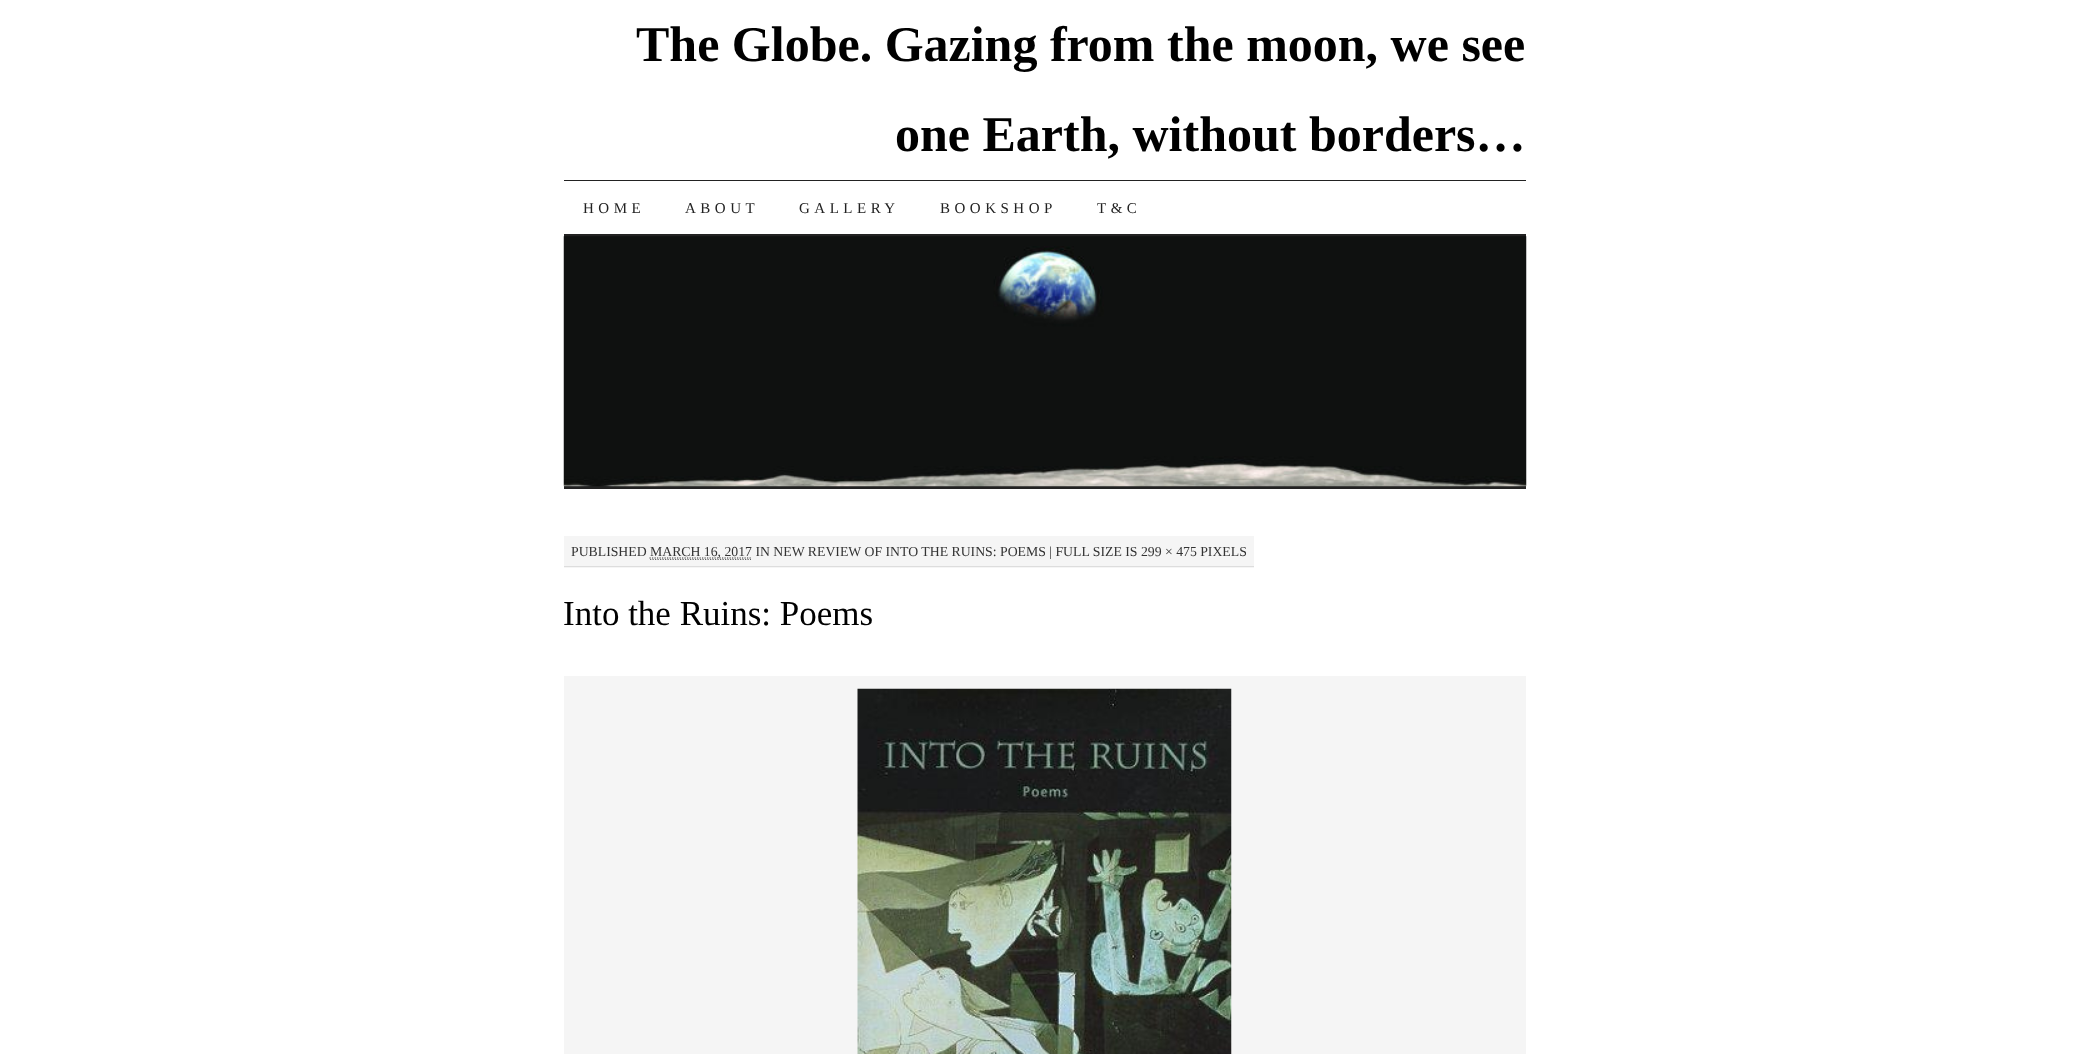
(async () => {
    const canvas = document.querySelector("canvas");
    canvas.width = 2088;
    canvas.height = 1054;
    const context = canvas.getContext("2d");
    context.miterLimit = 4;
    context.fontKerning = "normal";
    function write(s, x, y, font, color) {
        context.font = font;
        context.fillStyle = color;
        context.fillText(s, x, y);
    }
    function block(x, y, w, h, color) {
        context.fillStyle = color;
        context.fillRect(x, y, w, h);
    }
    async function photo(src, x, y, w, h) {
        const img = new Image();
        img.src = src;
        await img.decode();
        context.drawImage(img, x, y, w, h);
    }

    block(0, 0, 2088, 1054, "rgb(255, 255, 255)");
    write("The Globe. Gazing from the moon, we see", 636, 61, "bold 50px Liberation Serif", "rgb(0, 0, 0)");
    write("one Earth, without borders…", 895, 151, "bold 50px Liberation Serif", "rgb(0, 0, 0)");
    block(564, 180, 962, 1, "rgb(34, 34, 34)");
    block(564, 234, 962, 3, "rgb(34, 34, 34)");
    context.letterSpacing = "4.5px";
    write("HOME", 583, 213, "15px Liberation Serif", "rgb(34, 34, 34)");
    write("ABOUT", 685, 213, "15px Liberation Serif", "rgb(34, 34, 34)");
    write("GALLERY", 799, 213, "15px Liberation Serif", "rgb(34, 34, 34)");
    write("BOOKSHOP", 940, 213, "15px Liberation Serif", "rgb(34, 34, 34)");
    write("T&C", 1097, 213, "15px Liberation Serif", "rgb(34, 34, 34)");
    block(564, 486, 962, 3, "rgb(34, 34, 34)");
    await photo("media/1.png", 563, 236, 964, 251);
    block(564, 536, 690, 32, "rgb(245, 245, 245)");
    block(564, 566, 690, 1, "rgb(221, 221, 221)");
    context.letterSpacing = "0px";
    write("PUBLISHED", 571, 556, "13.75px Liberation Serif", "rgb(51, 51, 51)");
    context.beginPath();
    context.moveTo(650, 559.5);
    context.lineTo(751, 559.5);
    context.strokeStyle = "rgb(102, 102, 102)";
    context.lineWidth = 1.2;
    context.setLineDash([1.25, 1.25]);
    context.stroke();
    context.beginPath();
    context.moveTo(649.5, 558);
    context.lineTo(751.5, 558);
    context.strokeStyle = "rgb(51, 51, 51)";
    context.stroke();
    write("MARCH 16, 2017 IN NEW REVIEW OF INTO THE RUINS: POEMS | FULL SIZE IS 299 × 475 PIXELS", 650, 556, "13.75px Liberation Serif", "rgb(51, 51, 51)");
    write("Into the Ruins: Poems", 563, 625, "35px Liberation Serif", "rgb(0, 0, 0)");
    block(564, 676, 962, 378, "rgb(245, 245, 245)");
    await photo("media/2.png", 857, 688, 375, 366);
})();
